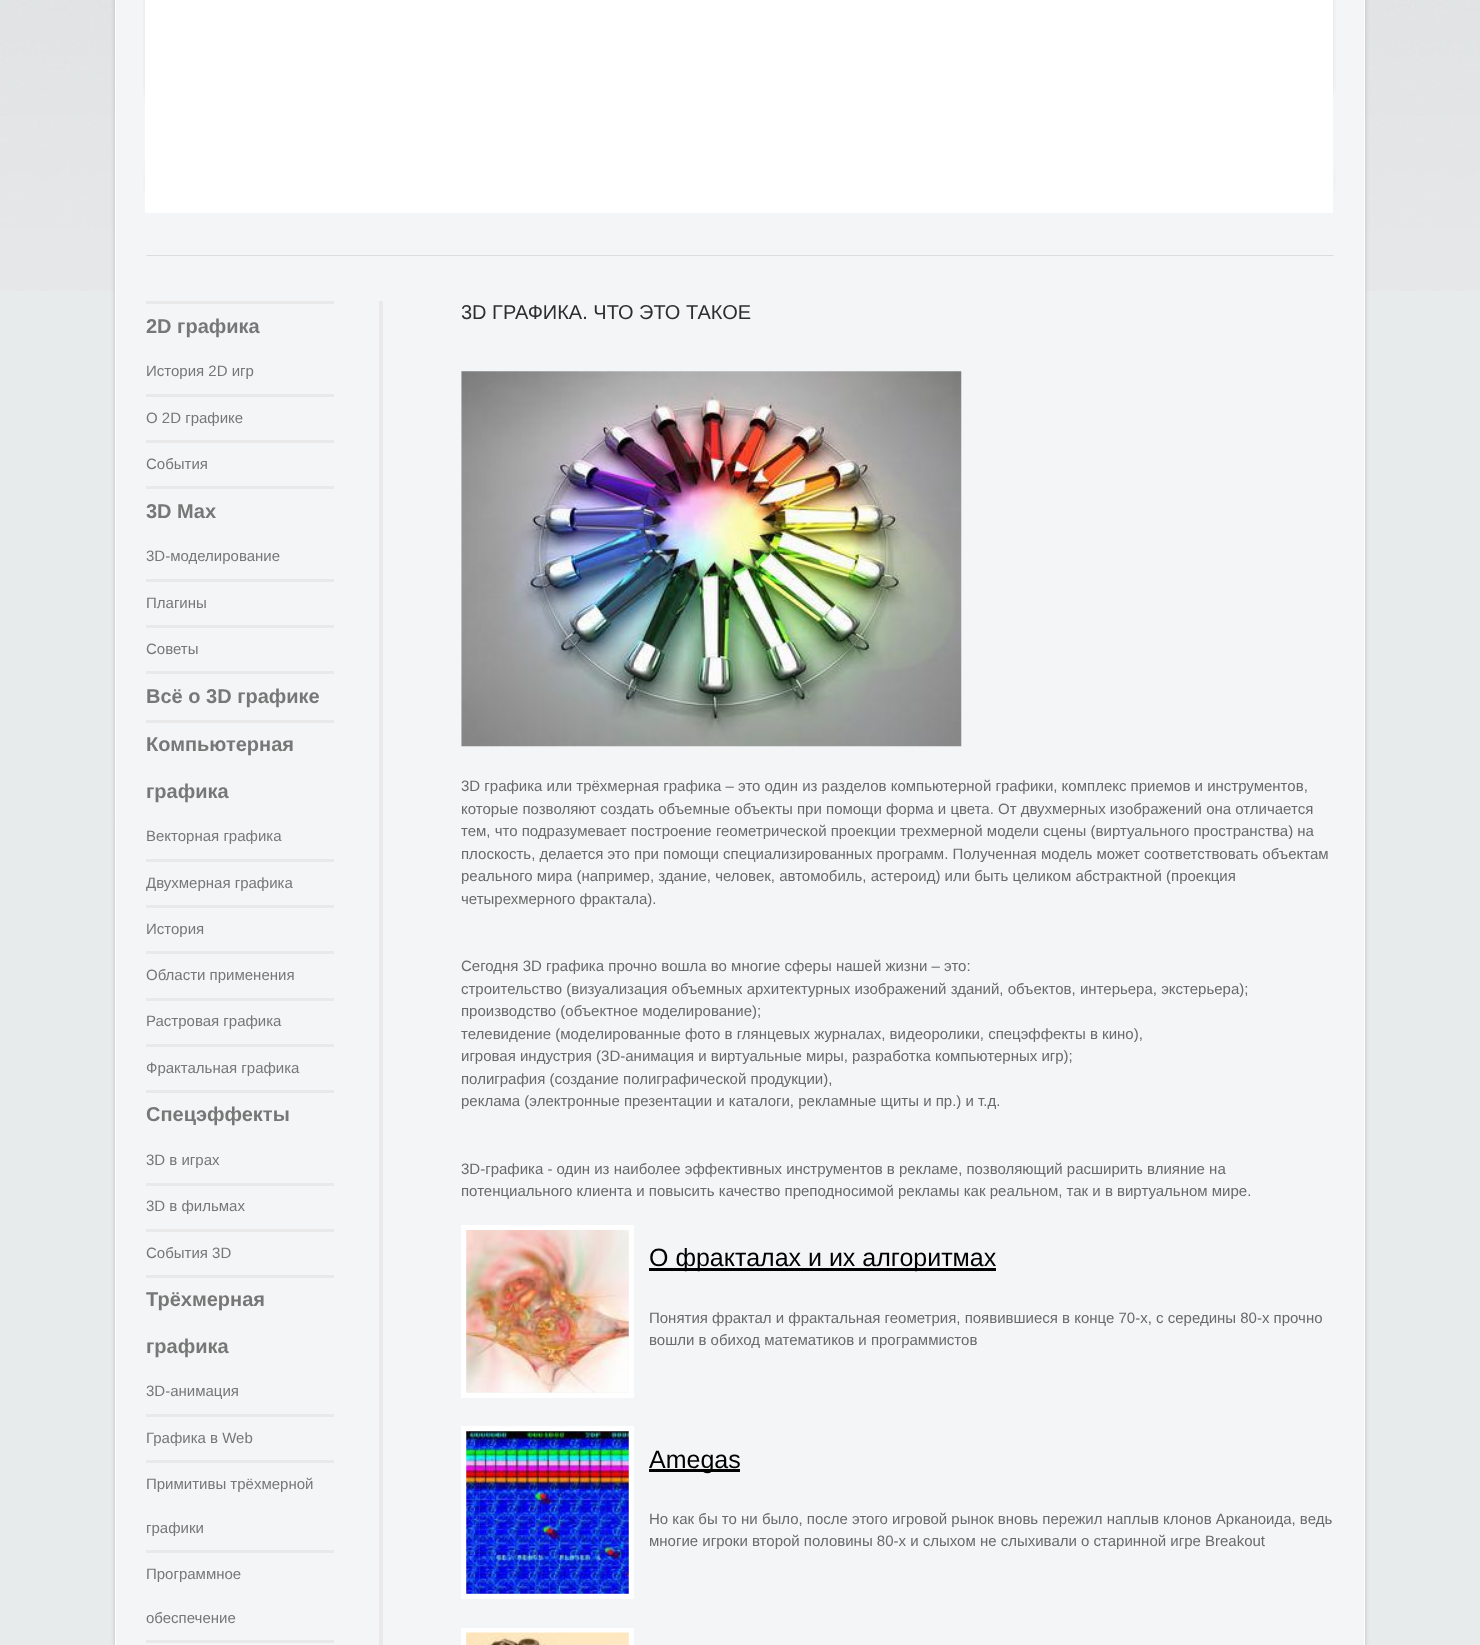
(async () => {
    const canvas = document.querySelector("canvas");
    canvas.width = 1480;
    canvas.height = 1645;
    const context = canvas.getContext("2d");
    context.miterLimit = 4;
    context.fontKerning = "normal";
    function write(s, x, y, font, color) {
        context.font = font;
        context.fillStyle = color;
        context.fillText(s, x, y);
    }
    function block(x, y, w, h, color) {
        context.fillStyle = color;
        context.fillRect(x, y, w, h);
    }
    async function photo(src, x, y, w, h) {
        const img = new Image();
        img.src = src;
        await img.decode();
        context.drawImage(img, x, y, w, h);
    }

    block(0, 0, 1480, 1645, "rgb(232, 235, 236)");
    await photo("media/1.png", 0, 0, 1480, 291);
    context.fillStyle = "rgb(187, 186, 186)";
    context.filter = "blur(2px)";
    context.beginPath();
    context.roundRect(115, -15, 1250, 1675, 9);
    context.fill();
    context.filter = "none";
    context.fillStyle = "rgb(244, 245, 246)";
    context.beginPath();
    context.rect(115.5, -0.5, 1249, 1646);
    context.fill();
    context.strokeStyle = "rgb(255, 255, 255)";
    context.stroke();
    await photo("media/2.png", 146, 255, 1188, 1);
    await photo("media/3.png", 143, 0, 1193, 192);
    block(145, 0, 1188, 213, "rgb(255, 255, 255)");
    block(379, 301, 4, 1344, "rgb(233, 233, 234)");
    block(146, 301, 188, 3, "rgb(233, 233, 234)");
    write("2D графика", 146, 333, "bold 20px Liberation Sans", "rgb(119, 119, 119)");
    write("История 2D игр", 146, 376, "15px Liberation Sans", "rgb(119, 119, 119)");
    block(146, 394, 188, 3, "rgb(233, 233, 234)");
    write("О 2D графике", 146, 423, "15px Liberation Sans", "rgb(119, 119, 119)");
    block(146, 440, 188, 3, "rgb(233, 233, 234)");
    write("События", 146, 469, "15px Liberation Sans", "rgb(119, 119, 119)");
    block(146, 486, 188, 3, "rgb(233, 233, 234)");
    write("3D Max", 146, 518, "bold 20px Liberation Sans", "rgb(119, 119, 119)");
    write("3D-моделирование", 146, 561, "15px Liberation Sans", "rgb(119, 119, 119)");
    block(146, 579, 188, 3, "rgb(233, 233, 234)");
    write("Плагины", 146, 608, "15px Liberation Sans", "rgb(119, 119, 119)");
    block(146, 625, 188, 3, "rgb(233, 233, 234)");
    write("Советы", 146, 654, "15px Liberation Sans", "rgb(119, 119, 119)");
    block(146, 671, 188, 3, "rgb(233, 233, 234)");
    write("Всё о 3D графике", 146, 703, "bold 20px Liberation Sans", "rgb(119, 119, 119)");
    block(146, 720, 188, 3, "rgb(233, 233, 234)");
    write("Компьютерная", 146, 751, "bold 20px Liberation Sans", "rgb(119, 119, 119)");
    write("графика", 146, 798, "bold 20px Liberation Sans", "rgb(119, 119, 119)");
    write("Векторная графика", 146, 841, "15px Liberation Sans", "rgb(119, 119, 119)");
    block(146, 859, 188, 3, "rgb(233, 233, 234)");
    write("Двухмерная графика", 146, 888, "15px Liberation Sans", "rgb(119, 119, 119)");
    block(146, 905, 188, 3, "rgb(233, 233, 234)");
    write("История", 146, 934, "15px Liberation Sans", "rgb(119, 119, 119)");
    block(146, 951, 188, 3, "rgb(233, 233, 234)");
    write("Области применения", 146, 980, "15px Liberation Sans", "rgb(119, 119, 119)");
    block(146, 998, 188, 3, "rgb(233, 233, 234)");
    write("Растровая графика", 146, 1026, "15px Liberation Sans", "rgb(119, 119, 119)");
    block(146, 1044, 188, 3, "rgb(233, 233, 234)");
    write("Фрактальная графика", 146, 1073, "15px Liberation Sans", "rgb(119, 119, 119)");
    block(146, 1090, 188, 3, "rgb(233, 233, 234)");
    write("Спецэффекты", 146, 1121, "bold 20px Liberation Sans", "rgb(119, 119, 119)");
    write("3D в играх", 146, 1165, "15px Liberation Sans", "rgb(119, 119, 119)");
    block(146, 1183, 188, 3, "rgb(233, 233, 234)");
    write("3D в фильмах", 146, 1211, "15px Liberation Sans", "rgb(119, 119, 119)");
    block(146, 1229, 188, 3, "rgb(233, 233, 234)");
    write("События 3D", 146, 1258, "15px Liberation Sans", "rgb(119, 119, 119)");
    block(146, 1275, 188, 3, "rgb(233, 233, 234)");
    write("Трёхмерная", 146, 1306, "bold 20px Liberation Sans", "rgb(119, 119, 119)");
    write("графика", 146, 1353, "bold 20px Liberation Sans", "rgb(119, 119, 119)");
    write("3D-анимация", 146, 1396, "15px Liberation Sans", "rgb(119, 119, 119)");
    block(146, 1414, 188, 3, "rgb(233, 233, 234)");
    write("Графика в Web", 146, 1443, "15px Liberation Sans", "rgb(119, 119, 119)");
    block(146, 1460, 188, 3, "rgb(233, 233, 234)");
    write("Примитивы трёхмерной", 146, 1489, "15px Liberation Sans", "rgb(119, 119, 119)");
    write("графики", 146, 1533, "15px Liberation Sans", "rgb(119, 119, 119)");
    block(146, 1550, 188, 3, "rgb(233, 233, 234)");
    write("Программное", 146, 1579, "15px Liberation Sans", "rgb(119, 119, 119)");
    write("обеспечение", 146, 1623, "15px Liberation Sans", "rgb(119, 119, 119)");
    block(146, 1640, 188, 3, "rgb(233, 233, 234)");
    write("3D ГРАФИКА. ЧТО ЭТО ТАКОЕ", 461, 319, "20px Liberation Sans", "rgb(47, 46, 46)");
    await photo("media/4.png", 461, 371, 501, 376);
    write("3D графика или трёхмерная графика – это один из разделов компьютерной графики, комплекс приемов и инструментов,", 461, 791, "15px Liberation Sans", "rgb(106, 106, 106)");
    write("которые позволяют создать объемные объекты при помощи форма и цвета. От двухмерных изображений она отличается", 461, 814, "15px Liberation Sans", "rgb(106, 106, 106)");
    write("тем, что подразумевает построение геометрической проекции трехмерной модели сцены (виртуального пространства) на", 461, 836, "15px Liberation Sans", "rgb(106, 106, 106)");
    write("плоскость, делается это при помощи специализированных программ. Полученная модель может соответствовать объектам", 461, 859, "15px Liberation Sans", "rgb(106, 106, 106)");
    write("реального мира (например, здание, человек, автомобиль, астероид) или быть целиком абстрактной (проекция", 461, 881, "15px Liberation Sans", "rgb(106, 106, 106)");
    write("четырехмерного фрактала).", 461, 904, "15px Liberation Sans", "rgb(106, 106, 106)");
    write("Сегодня 3D графика прочно вошла во многие сферы нашей жизни – это:", 461, 971, "15px Liberation Sans", "rgb(106, 106, 106)");
    write("строительство (визуализация объемных архитектурных изображений зданий, объектов, интерьера, экстерьера);", 461, 994, "15px Liberation Sans", "rgb(106, 106, 106)");
    write("производство (объектное моделирование);", 461, 1016, "15px Liberation Sans", "rgb(106, 106, 106)");
    write("телевидение (моделированные фото в глянцевых журналах, видеоролики, спецэффекты в кино),", 461, 1039, "15px Liberation Sans", "rgb(106, 106, 106)");
    write("игровая индустрия (3D-анимация и виртуальные миры, разработка компьютерных игр);", 461, 1061, "15px Liberation Sans", "rgb(106, 106, 106)");
    write("полиграфия (создание полиграфической продукции),", 461, 1084, "15px Liberation Sans", "rgb(106, 106, 106)");
    write("реклама (электронные презентации и каталоги, рекламные щиты и пр.) и т.д.", 461, 1106, "15px Liberation Sans", "rgb(106, 106, 106)");
    write("3D-графика - один из наиболее эффективных инструментов в рекламе, позволяющий расширить влияние на", 461, 1174, "15px Liberation Sans", "rgb(106, 106, 106)");
    write("потенциального клиента и повысить качество преподносимой рекламы как реальном, так и в виртуальном мире.", 461, 1196, "15px Liberation Sans", "rgb(106, 106, 106)");
    context.lineWidth = 5;
    context.strokeRect(463.5, 1227.5, 168, 168);
    await photo("media/5.png", 466, 1230, 163, 163);
    block(649, 1268, 347, 3, "rgb(0, 0, 0)");
    write("О фракталах и их алгоритмах", 649, 1266, "25px Liberation Sans", "rgb(0, 0, 0)");
    write("Понятия фрактал и фрактальная геометрия, появившиеся в конце 70-х, с середины 80-х прочно", 649, 1323, "15px Liberation Sans", "rgb(106, 106, 106)");
    write("вошли в обиход математиков и программистов", 649, 1345, "15px Liberation Sans", "rgb(106, 106, 106)");
    context.strokeRect(463.5, 1428.5, 168, 168);
    await photo("media/6.png", 466, 1431, 163, 163);
    block(649, 1469, 91, 3, "rgb(0, 0, 0)");
    write("Amegas", 649, 1468, "25px Liberation Sans", "rgb(0, 0, 0)");
    write("Но как бы то ни было, после этого игровой рынок вновь пережил наплыв клонов Арканоида, ведь", 649, 1524, "15px Liberation Sans", "rgb(106, 106, 106)");
    write("многие игроки второй половины 80-х и слыхом не слыхивали о старинной игре Breakout", 649, 1546, "15px Liberation Sans", "rgb(106, 106, 106)");
    context.strokeRect(463.5, 1630.5, 168, 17);
    await photo("media/7.png", 466, 1632, 163, 13);
})();
